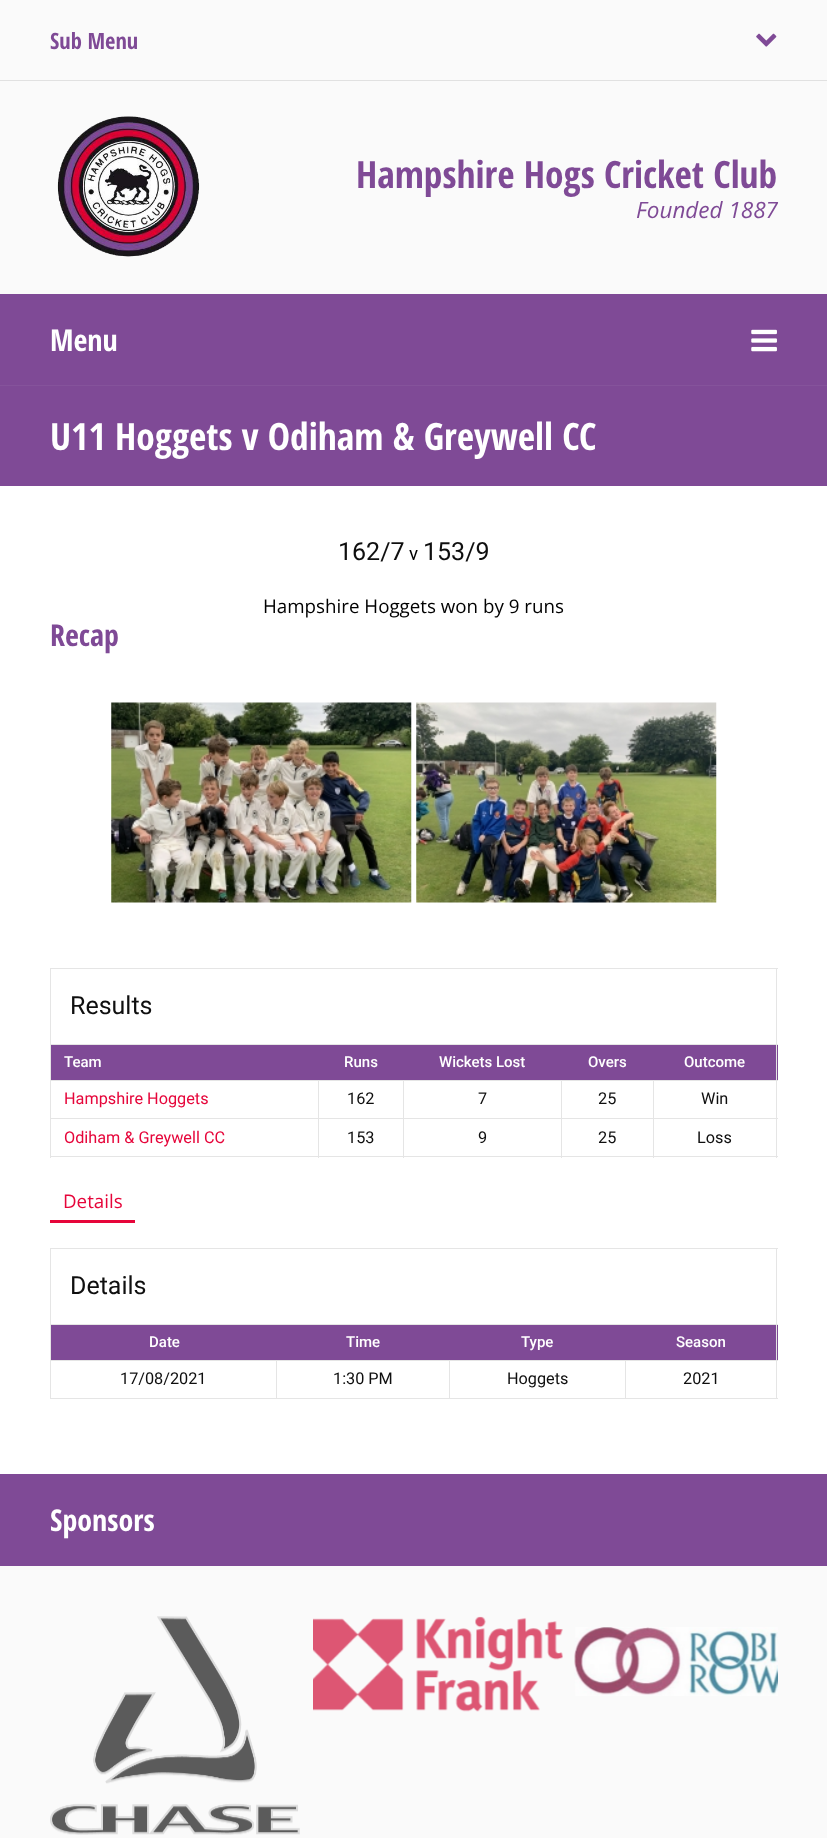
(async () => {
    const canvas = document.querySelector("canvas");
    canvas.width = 827;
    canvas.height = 1838;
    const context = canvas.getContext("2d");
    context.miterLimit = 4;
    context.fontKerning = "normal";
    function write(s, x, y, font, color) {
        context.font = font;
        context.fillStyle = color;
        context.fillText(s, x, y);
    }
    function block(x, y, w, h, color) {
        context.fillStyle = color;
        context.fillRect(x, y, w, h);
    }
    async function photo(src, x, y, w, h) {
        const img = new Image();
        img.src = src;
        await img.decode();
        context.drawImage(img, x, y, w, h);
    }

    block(0, 0, 827, 1838, "rgb(250, 250, 250)");
    block(0, 80, 827, 1, "rgb(225, 225, 225)");
    write("Sub Menu", 50, 49, "bold 22.5px Open Sans Condensed", "rgb(127, 74, 150)");
    await photo("media/1.png", 756, 33, 21, 14);
    await photo("media/2.png", 57, 116, 143, 141);
    write("Hampshire Hogs Cricket Club", 356, 188, "bold 37.5px Open Sans Condensed", "rgb(127, 74, 150)");
    write("Founded 1887", 636, 218, "italic 22.5px Open Sans", "rgb(127, 74, 150)");
    block(0, 294, 827, 91, "rgb(127, 74, 150)");
    write("Menu", 50, 351, "bold 30px Open Sans Condensed", "rgb(255, 255, 255)");
    await photo("media/3.png", 751, 329, 26, 23);
    block(0, 386, 827, 100, "rgb(127, 74, 150)");
    block(0, 385, 827, 1, "rgb(133, 83, 155)");
    write("U11 Hoggets v Odiham & Greywell CC", 50, 450, "bold 37.5px Open Sans Condensed", "rgb(255, 255, 255)");
    block(0, 486, 827, 988, "rgb(255, 255, 255)");
    write("162/7", 338, 560, "25px Roboto", "rgb(15, 15, 15)");
    write("v", 409, 560, "18.75px Roboto", "rgb(0, 0, 0)");
    write("153/9", 423, 560, "25px Roboto", "rgb(15, 15, 15)");
    write("Hampshire Hoggets won by 9 runs", 263, 613, "18.75px Open Sans", "rgb(0, 0, 0)");
    write("Recap", 50, 646, "bold 30px Open Sans Condensed", "rgb(127, 74, 150)");
    await photo("media/4.png", 111, 702, 301, 201);
    await photo("media/5.png", 416, 702, 301, 201);
    block(50, 968, 728, 1, "rgb(229, 229, 229)");
    block(776, 968, 1, 76, "rgb(229, 229, 229)");
    block(50, 968, 1, 76, "rgb(229, 229, 229)");
    write("Results", 70, 1014, "25px Roboto", "rgb(15, 15, 15)");
    block(50, 1044, 728, 1, "rgb(229, 229, 229)");
    block(51, 1045, 727, 35, "rgb(127, 74, 150)");
    block(776, 1044, 1, 114, "rgb(229, 229, 229)");
    block(50, 1156, 728, 1, "rgb(229, 229, 229)");
    block(50, 1044, 1, 114, "rgb(229, 229, 229)");
    write("Team", 64, 1067, "500 15px Roboto", "rgb(255, 255, 255)");
    write("Runs", 344, 1067, "500 15px Roboto", "rgb(255, 255, 255)");
    write("Wickets Lost", 439, 1067, "500 15px Roboto", "rgb(255, 255, 255)");
    write("Overs", 588, 1067, "500 15px Roboto", "rgb(255, 255, 255)");
    write("Outcome", 684, 1067, "500 15px Roboto", "rgb(255, 255, 255)");
    block(653, 1080, 125, 1, "rgb(229, 229, 229)");
    block(653, 1118, 125, 1, "rgb(229, 229, 229)");
    block(653, 1118, 1, 40, "rgb(229, 229, 229)");
    block(561, 1118, 93, 1, "rgb(229, 229, 229)");
    block(653, 1080, 1, 39, "rgb(229, 229, 229)");
    block(561, 1080, 93, 1, "rgb(229, 229, 229)");
    block(561, 1118, 1, 40, "rgb(229, 229, 229)");
    block(403, 1118, 160, 1, "rgb(229, 229, 229)");
    block(561, 1080, 1, 39, "rgb(229, 229, 229)");
    block(403, 1080, 160, 1, "rgb(229, 229, 229)");
    block(403, 1118, 1, 40, "rgb(229, 229, 229)");
    block(318, 1118, 86, 1, "rgb(229, 229, 229)");
    block(403, 1080, 1, 39, "rgb(229, 229, 229)");
    block(318, 1080, 86, 1, "rgb(229, 229, 229)");
    block(318, 1118, 1, 40, "rgb(229, 229, 229)");
    block(50, 1118, 269, 1, "rgb(229, 229, 229)");
    block(318, 1080, 1, 39, "rgb(229, 229, 229)");
    block(50, 1080, 269, 1, "rgb(229, 229, 229)");
    write("Hampshire Hoggets", 64, 1104, "16.25px Roboto", "rgb(230, 5, 58)");
    write("162", 347, 1104, "16.25px Roboto", "rgb(15, 15, 15)");
    write("7", 478, 1104, "16.25px Roboto", "rgb(15, 15, 15)");
    write("25", 598, 1104, "16.25px Roboto", "rgb(15, 15, 15)");
    write("Win", 701, 1104, "16.25px Roboto", "rgb(15, 15, 15)");
    write("Odiham & Greywell CC", 64, 1143, "16.25px Roboto", "rgb(230, 5, 58)");
    write("153", 347, 1143, "16.25px Roboto", "rgb(15, 15, 15)");
    write("9", 478, 1143, "16.25px Roboto", "rgb(15, 15, 15)");
    write("25", 598, 1143, "16.25px Roboto", "rgb(15, 15, 15)");
    write("Loss", 697, 1143, "16.25px Roboto", "rgb(15, 15, 15)");
    block(50, 1220, 85, 3, "rgb(230, 5, 58)");
    write("Details", 63, 1208, "18.75px Open Sans", "rgb(230, 5, 58)");
    block(50, 1248, 728, 1, "rgb(229, 229, 229)");
    block(776, 1248, 1, 76, "rgb(229, 229, 229)");
    block(50, 1248, 1, 76, "rgb(229, 229, 229)");
    write("Details", 70, 1294, "25px Roboto", "rgb(15, 15, 15)");
    block(50, 1324, 728, 1, "rgb(229, 229, 229)");
    block(51, 1325, 727, 35, "rgb(127, 74, 150)");
    block(776, 1324, 1, 75, "rgb(229, 229, 229)");
    block(50, 1398, 728, 1, "rgb(229, 229, 229)");
    block(50, 1324, 1, 75, "rgb(229, 229, 229)");
    write("Date", 149, 1347, "500 15px Roboto", "rgb(255, 255, 255)");
    write("Time", 346, 1347, "500 15px Roboto", "rgb(255, 255, 255)");
    write("Type", 521, 1347, "500 15px Roboto", "rgb(255, 255, 255)");
    write("Season", 676, 1347, "500 15px Roboto", "rgb(255, 255, 255)");
    block(625, 1360, 153, 1, "rgb(229, 229, 229)");
    block(625, 1360, 1, 39, "rgb(229, 229, 229)");
    block(449, 1360, 177, 1, "rgb(229, 229, 229)");
    block(449, 1360, 1, 39, "rgb(229, 229, 229)");
    block(276, 1360, 174, 1, "rgb(229, 229, 229)");
    block(276, 1360, 1, 39, "rgb(229, 229, 229)");
    block(50, 1360, 228, 1, "rgb(229, 229, 229)");
    write("17/08/2021", 120, 1384, "16.25px Roboto", "rgb(15, 15, 15)");
    write("1:30 PM", 333, 1384, "16.25px Roboto", "rgb(15, 15, 15)");
    write("Hoggets", 507, 1384, "16.25px Roboto", "rgb(15, 15, 15)");
    write("2021", 683, 1384, "16.25px Roboto", "rgb(15, 15, 15)");
    block(0, 1474, 827, 92, "rgb(127, 74, 150)");
    write("Sponsors", 50, 1531, "bold 30px Open Sans Condensed", "rgb(255, 255, 255)");
    await photo("media/6.png", 50, 1616, 250, 219);
    await photo("media/7.png", 313, 1616, 250, 96);
    await photo("media/8.png", 574, 1627, 204, 69);
})();
